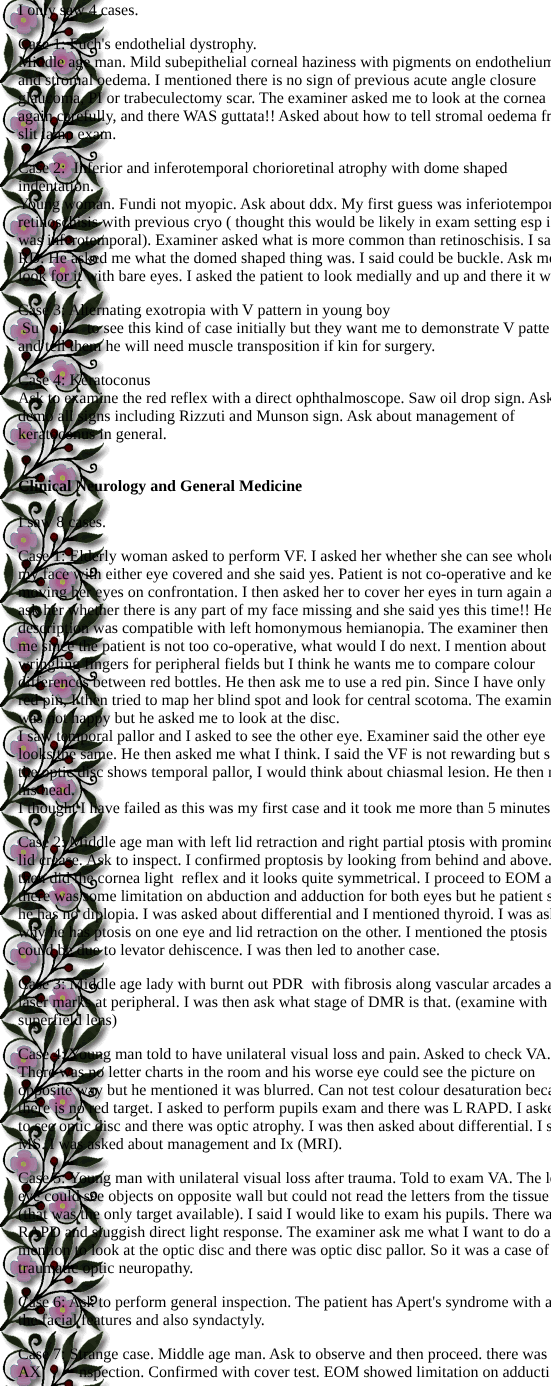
(async () => {
    const canvas = document.querySelector("canvas");
    canvas.width = 551;
    canvas.height = 1386;
    const context = canvas.getContext("2d");
    context.miterLimit = 4;
    context.fontKerning = "normal";
    function write(s, x, y, font, color) {
        context.font = font;
        context.fillStyle = color;
        context.fillText(s, x, y);
    }
    function block(x, y, w, h, color) {
        context.fillStyle = color;
        context.fillRect(x, y, w, h);
    }
    async function photo(src, x, y, w, h) {
        const img = new Image();
        img.src = src;
        await img.decode();
        context.drawImage(img, x, y, w, h);
    }

    block(0, 0, 551, 1386, "rgb(255, 255, 255)");
    await photo("media/1.png", 0, 0, 110, 1386);
    write("I only saw 4 cases.", 18, 15, "16px Liberation Serif", "rgb(0, 0, 0)");
    write("Case 1: Fuch's endothelial dystrophy.", 18, 49, "16px Liberation Serif", "rgb(0, 0, 0)");
    write("Middle age man. Mild subepithelial corneal haziness with pigments on endothelium", 18, 67, "16px Liberation Serif", "rgb(0, 0, 0)");
    write("and stromal oedema. I mentioned there is no sign of previous acute angle closure", 18, 85, "16px Liberation Serif", "rgb(0, 0, 0)");
    write("glaucoma, PI or trabeculectomy scar. The examiner asked me to look at the cornea", 18, 103, "16px Liberation Serif", "rgb(0, 0, 0)");
    write("again carefully, and there WAS guttata!! Asked about how to tell stromal oedema fr", 18, 121, "16px Liberation Serif", "rgb(0, 0, 0)");
    write("slit lamp exam.", 18, 139, "16px Liberation Serif", "rgb(0, 0, 0)");
    write("Case 2:  Inferior and inferotemporal chorioretinal atrophy with dome shaped", 18, 173, "16px Liberation Serif", "rgb(0, 0, 0)");
    write("indentation.", 18, 191, "16px Liberation Serif", "rgb(0, 0, 0)");
    write("Young woman. Fundi not myopic. Ask about ddx. My first guess was inferiotempor", 18, 209, "16px Liberation Serif", "rgb(0, 0, 0)");
    write("retinoschisis with previous cryo ( thought this would be likely in exam setting esp i", 18, 227, "16px Liberation Serif", "rgb(0, 0, 0)");
    write("was inferotemporal). Examiner asked what is more common than retinoschisis. I sa", 18, 245, "16px Liberation Serif", "rgb(0, 0, 0)");
    write("RD. He asked me what the domed shaped thing was. I said could be buckle. Ask me", 18, 263, "16px Liberation Serif", "rgb(0, 0, 0)");
    write("look for it with bare eyes. I asked the patient to look medially and up and there it w", 18, 281, "16px Liberation Serif", "rgb(0, 0, 0)");
    write("Case 3: Alternating exotropia with V pattern in young boy", 18, 315, "16px Liberation Serif", "rgb(0, 0, 0)");
    write("Su", 22, 333, "16px Liberation Serif", "rgb(0, 0, 0)");
    write("i", 58, 333, "16px Liberation Serif", "rgb(0, 0, 0)");
    write("to see this kind of case initially but they want me to demonstrate V patte", 87, 333, "16px Liberation Serif", "rgb(0, 0, 0)");
    write("and tell them he will need muscle transposition if kin for surgery.", 18, 351, "16px Liberation Serif", "rgb(0, 0, 0)");
    write("Case 4: Keratoconus", 18, 385, "16px Liberation Serif", "rgb(0, 0, 0)");
    write("Ask to examine the red reflex with a direct ophthalmoscope. Saw oil drop sign. Ask", 18, 403, "16px Liberation Serif", "rgb(0, 0, 0)");
    write("demo all signs including Rizzuti and Munson sign. Ask about management of", 18, 421, "16px Liberation Serif", "rgb(0, 0, 0)");
    write("keratoconus in general.", 18, 439, "16px Liberation Serif", "rgb(0, 0, 0)");
    write("Clinical Neurology and General Medicine", 18, 491, "bold 16px Liberation Serif", "rgb(0, 0, 0)");
    write("I saw 8 cases.", 18, 527, "16px Liberation Serif", "rgb(0, 0, 0)");
    write("Case 1: Elderly woman asked to perform VF. I asked her whether she can see whole", 18, 561, "16px Liberation Serif", "rgb(0, 0, 0)");
    write("my face with either eye covered and she said yes. Patient is not co-operative and ke", 18, 579, "16px Liberation Serif", "rgb(0, 0, 0)");
    write("moving her eyes on confrontation. I then asked her to cover her eyes in turn again a", 18, 597, "16px Liberation Serif", "rgb(0, 0, 0)");
    write("ask her whether there is any part of my face missing and she said yes this time!! He", 18, 615, "16px Liberation Serif", "rgb(0, 0, 0)");
    write("description was compatible with left homonymous hemianopia. The examiner then", 18, 633, "16px Liberation Serif", "rgb(0, 0, 0)");
    write("me since the patient is not too co-operative, what would I do next. I mention about", 18, 651, "16px Liberation Serif", "rgb(0, 0, 0)");
    write("wringling fingers for peripheral fields but I think he wants me to compare colour", 18, 669, "16px Liberation Serif", "rgb(0, 0, 0)");
    write("differences between red bottles. He then ask me to use a red pin. Since I have only", 18, 687, "16px Liberation Serif", "rgb(0, 0, 0)");
    write("red pin, I then tried to map her blind spot and look for central scotoma. The examin", 18, 705, "16px Liberation Serif", "rgb(0, 0, 0)");
    write("was not happy but he asked me to look at the disc.", 18, 723, "16px Liberation Serif", "rgb(0, 0, 0)");
    write("I saw temporal pallor and I asked to see the other eye. Examiner said the other eye", 18, 741, "16px Liberation Serif", "rgb(0, 0, 0)");
    write("looks the same. He then asked me what I think. I said the VF is not rewarding but s", 18, 759, "16px Liberation Serif", "rgb(0, 0, 0)");
    write("the optic disc shows temporal pallor, I would think about chiasmal lesion. He then n", 18, 777, "16px Liberation Serif", "rgb(0, 0, 0)");
    write("his head.", 18, 795, "16px Liberation Serif", "rgb(0, 0, 0)");
    write("I thought I have failed as this was my first case and it took me more than 5 minutes", 18, 813, "16px Liberation Serif", "rgb(0, 0, 0)");
    write("Case 2: Middle age man with left lid retraction and right partial ptosis with promine", 18, 847, "16px Liberation Serif", "rgb(0, 0, 0)");
    write("lid crease. Ask to inspect. I confirmed proptosis by looking from behind and above.", 18, 865, "16px Liberation Serif", "rgb(0, 0, 0)");
    write("then did the cornea light  reflex and it looks quite symmetrical. I proceed to EOM a", 18, 883, "16px Liberation Serif", "rgb(0, 0, 0)");
    write("there was some limitation on abduction and adduction for both eyes but he patient s", 18, 901, "16px Liberation Serif", "rgb(0, 0, 0)");
    write("he has no diplopia. I was asked about differential and I mentioned thyroid. I was ask", 18, 919, "16px Liberation Serif", "rgb(0, 0, 0)");
    write("why he has ptosis on one eye and lid retraction on the other. I mentioned the ptosis", 18, 937, "16px Liberation Serif", "rgb(0, 0, 0)");
    write("could be due to levator dehiscence. I was then led to another case.", 18, 955, "16px Liberation Serif", "rgb(0, 0, 0)");
    write("Case 3: Middle age lady with burnt out PDR  with fibrosis along vascular arcades a", 18, 989, "16px Liberation Serif", "rgb(0, 0, 0)");
    write("laser marks at peripheral. I was then ask what stage of DMR is that. (examine with", 18, 1007, "16px Liberation Serif", "rgb(0, 0, 0)");
    write("superfield lens)", 18, 1025, "16px Liberation Serif", "rgb(0, 0, 0)");
    write("Case 4: Young man told to have unilateral visual loss and pain. Asked to check VA.", 18, 1059, "16px Liberation Serif", "rgb(0, 0, 0)");
    write("There was no letter charts in the room and his worse eye could see the picture on", 18, 1077, "16px Liberation Serif", "rgb(0, 0, 0)");
    write("opposite way but he mentioned it was blurred. Can not test colour desaturation beca", 18, 1095, "16px Liberation Serif", "rgb(0, 0, 0)");
    write("there is no red target. I asked to perform pupils exam and there was L RAPD. I aske", 18, 1113, "16px Liberation Serif", "rgb(0, 0, 0)");
    write("to see optic disc and there was optic atrophy. I was then asked about differential. I s", 18, 1131, "16px Liberation Serif", "rgb(0, 0, 0)");
    write("MS. I was asked about management and Ix (MRI).", 18, 1149, "16px Liberation Serif", "rgb(0, 0, 0)");
    write("Case 5: Young man with unilateral visual loss after trauma. Told to exam VA. The le", 18, 1183, "16px Liberation Serif", "rgb(0, 0, 0)");
    write("eye could see objects on opposite wall but could not read the letters from the tissue", 18, 1201, "16px Liberation Serif", "rgb(0, 0, 0)");
    write("(that was the only target available). I said I would like to exam his pupils. There wa", 18, 1219, "16px Liberation Serif", "rgb(0, 0, 0)");
    write("RAPD and sluggish direct light response. The examiner ask me what I want to do a", 18, 1237, "16px Liberation Serif", "rgb(0, 0, 0)");
    write("mention to look at the optic disc and there was optic disc pallor. So it was a case of", 18, 1255, "16px Liberation Serif", "rgb(0, 0, 0)");
    write("traumatic optic neuropathy.", 18, 1273, "16px Liberation Serif", "rgb(0, 0, 0)");
    write("Case 6: Ask to perform general inspection. The patient has Apert's syndrome with a", 18, 1307, "16px Liberation Serif", "rgb(0, 0, 0)");
    write("the facial features and also syndactyly.", 18, 1325, "16px Liberation Serif", "rgb(0, 0, 0)");
    write("Case 7: Strange case. Middle age man. Ask to observe and then proceed. there was", 18, 1359, "16px Liberation Serif", "rgb(0, 0, 0)");
    write("AX", 18, 1377, "16px Liberation Serif", "rgb(0, 0, 0)");
    write("nspection. Confirmed with cover test. EOM showed limitation on adducti", 79, 1377, "16px Liberation Serif", "rgb(0, 0, 0)");
})();
